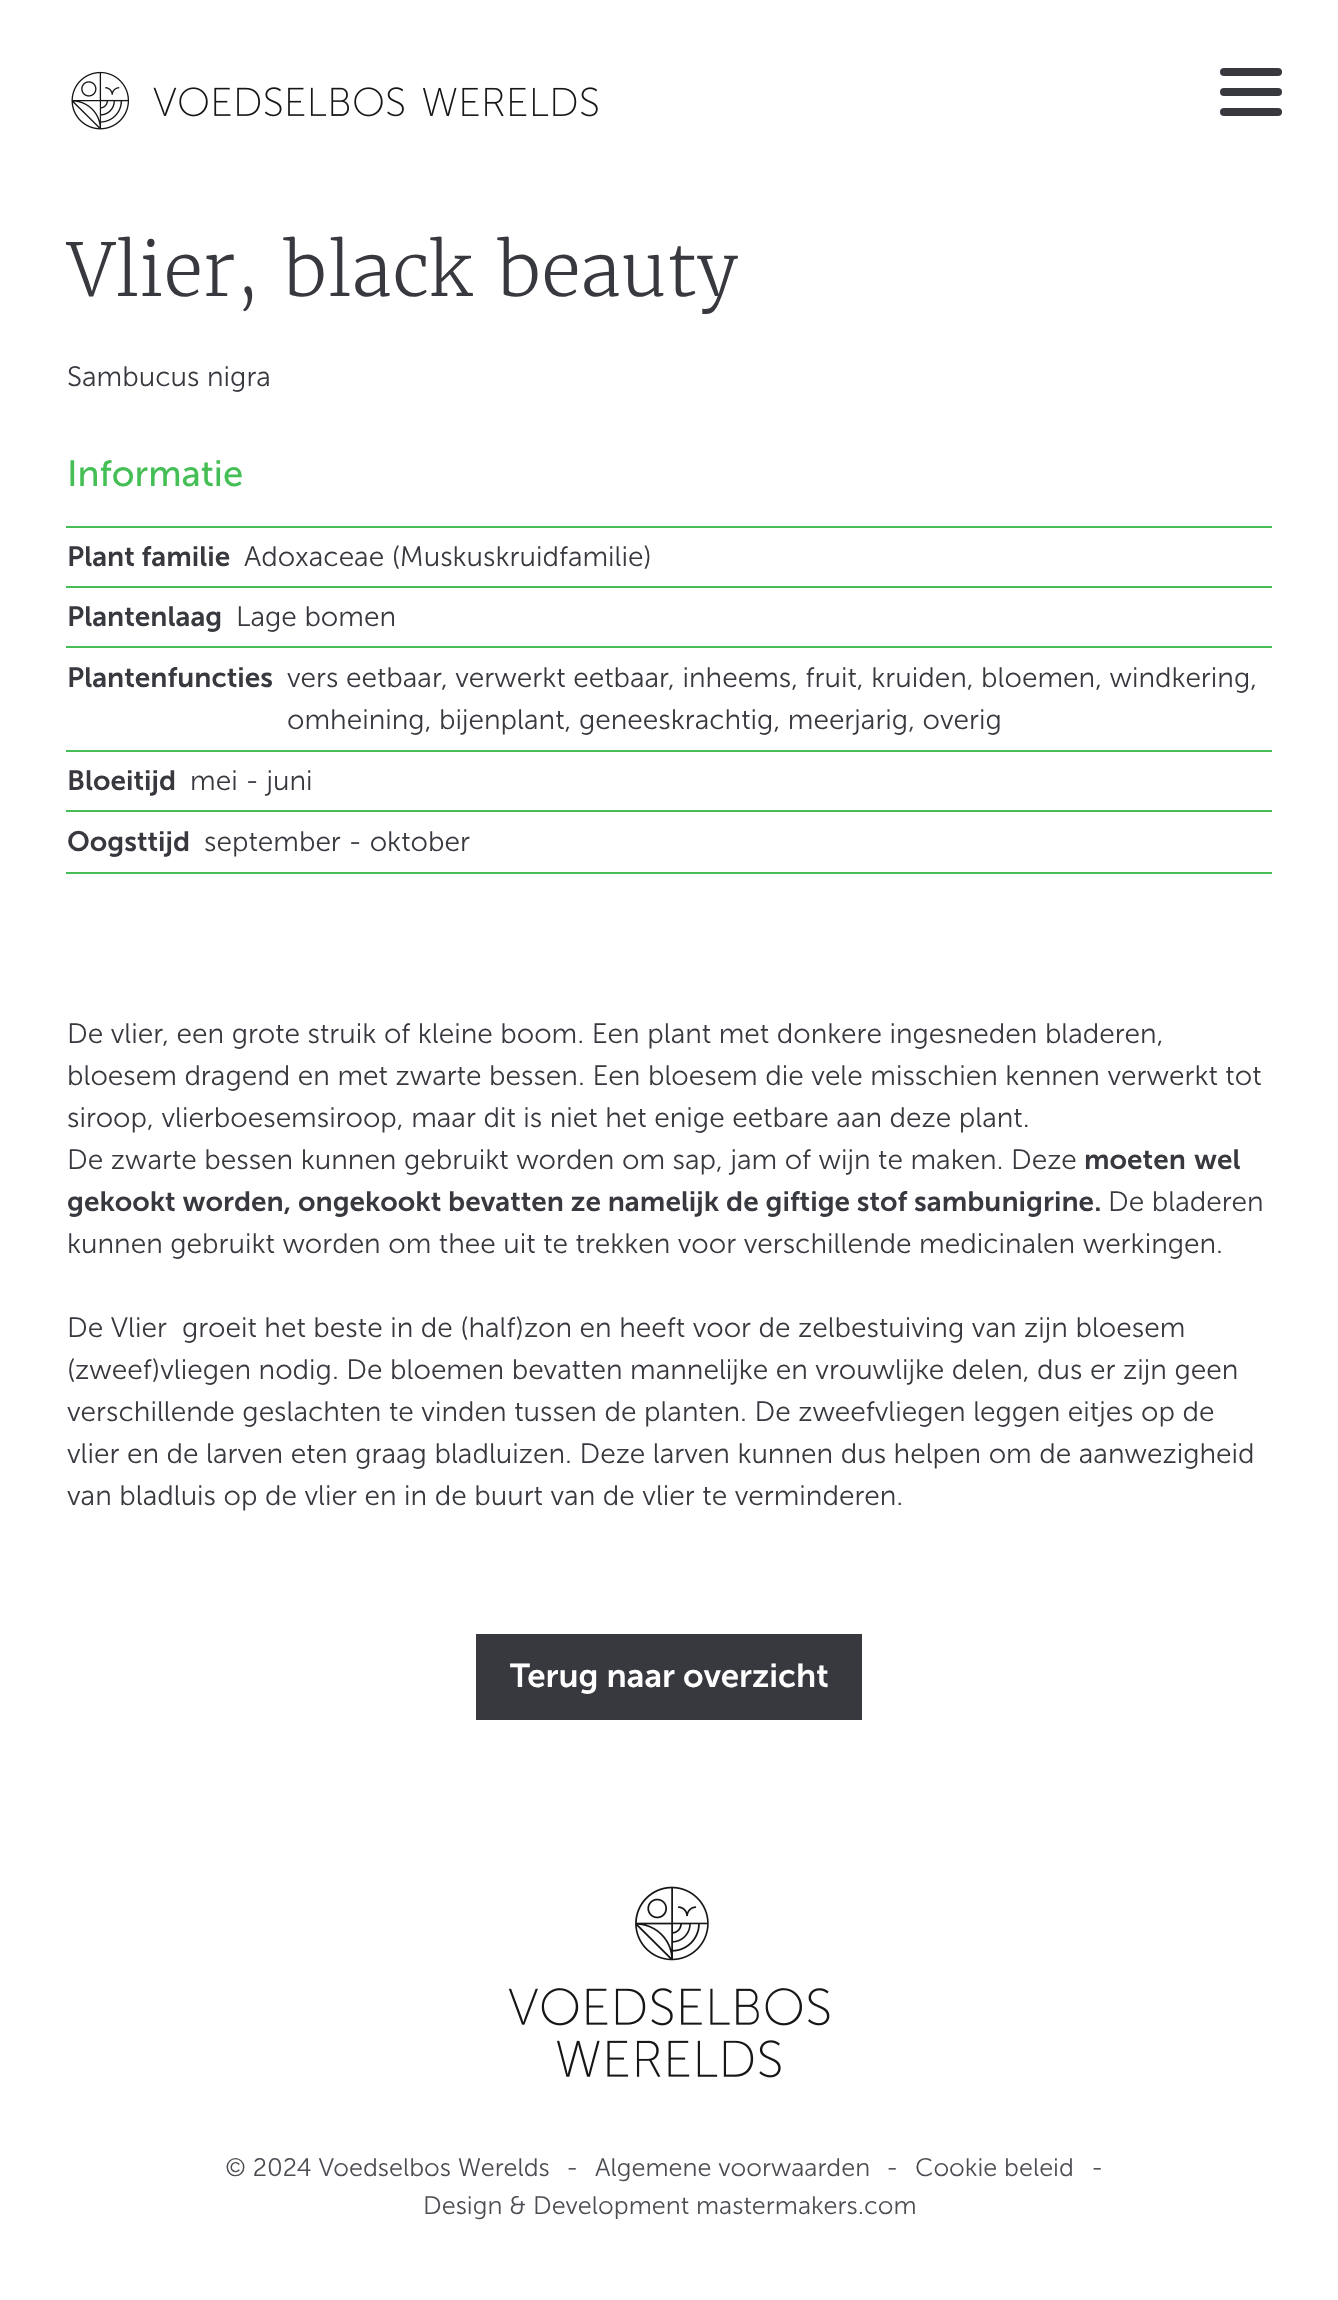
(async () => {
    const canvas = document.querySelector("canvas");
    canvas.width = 1338;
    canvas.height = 2300;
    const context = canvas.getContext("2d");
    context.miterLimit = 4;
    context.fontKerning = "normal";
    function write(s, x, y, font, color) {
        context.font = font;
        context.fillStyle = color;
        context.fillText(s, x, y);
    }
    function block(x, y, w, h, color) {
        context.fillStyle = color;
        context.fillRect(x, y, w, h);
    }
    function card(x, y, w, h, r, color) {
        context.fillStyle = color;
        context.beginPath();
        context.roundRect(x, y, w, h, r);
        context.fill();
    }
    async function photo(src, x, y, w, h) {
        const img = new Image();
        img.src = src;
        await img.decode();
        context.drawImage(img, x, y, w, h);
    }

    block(0, 0, 1338, 2300, "rgb(255, 255, 255)");
    await photo("media/1.png", 71, 71, 527, 59);
    card(1220, 68, 62, 8, 4, "rgb(55, 57, 63)");
    card(1220, 88, 62, 8, 4, "rgb(55, 57, 63)");
    card(1220, 108, 62, 8, 4, "rgb(55, 57, 63)");
    write("Vlier, black beauty", 67, 296, "300 72.75px Merriweather", "rgb(55, 57, 63)");
    write("Sambucus nigra", 67, 386, "300 28px 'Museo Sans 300'", "rgb(55, 57, 63)");
    write("Informatie", 67, 486, "36.5px 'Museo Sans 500'", "rgb(69, 191, 85)");
    block(66, 526, 1206, 2, "rgb(69, 191, 85)");
    write("Plant familie", 67, 566, "600 28px 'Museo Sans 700'", "rgb(55, 57, 63)");
    block(66, 586, 1206, 2, "rgb(69, 191, 85)");
    write("Adoxaceae (Muskuskruidfamilie)", 244, 566, "300 28px 'Museo Sans 300'", "rgb(55, 57, 63)");
    write("Plantenlaag", 67, 626, "600 28px 'Museo Sans 700'", "rgb(55, 57, 63)");
    block(66, 646, 1206, 2, "rgb(69, 191, 85)");
    write("Lage bomen", 236, 626, "300 28px 'Museo Sans 300'", "rgb(55, 57, 63)");
    write("Plantenfuncties", 67, 687, "600 28px 'Museo Sans 700'", "rgb(55, 57, 63)");
    block(66, 750, 1206, 2, "rgb(69, 191, 85)");
    write("vers eetbaar, verwerkt eetbaar, inheems, fruit, kruiden, bloemen, windkering,", 287, 687, "300 28px 'Museo Sans 300'", "rgb(55, 57, 63)");
    write("omheining, bijenplant, geneeskrachtig, meerjarig, overig", 287, 729, "300 28px 'Museo Sans 300'", "rgb(55, 57, 63)");
    write("Bloeitijd", 67, 790, "600 28px 'Museo Sans 700'", "rgb(55, 57, 63)");
    block(66, 810, 1206, 2, "rgb(69, 191, 85)");
    write("mei - juni", 190, 790, "300 28px 'Museo Sans 300'", "rgb(55, 57, 63)");
    write("Oogsttijd", 67, 851, "600 28px 'Museo Sans 700'", "rgb(55, 57, 63)");
    block(66, 872, 1206, 2, "rgb(69, 191, 85)");
    write("september - oktober", 204, 851, "300 28px 'Museo Sans 300'", "rgb(55, 57, 63)");
    write("De vlier, een grote struik of kleine boom. Een plant met donkere ingesneden bladeren,", 67, 1043, "300 28px 'Museo Sans 300'", "rgb(55, 57, 63)");
    write("bloesem dragend en met zwarte bessen. Een bloesem die vele misschien kennen verwerkt tot", 67, 1085, "300 28px 'Museo Sans 300'", "rgb(55, 57, 63)");
    write("siroop, vlierboesemsiroop, maar dit is niet het enige eetbare aan deze plant.", 67, 1127, "300 28px 'Museo Sans 300'", "rgb(55, 57, 63)");
    write("De zwarte bessen kunnen gebruikt worden om sap, jam of wijn te maken. Deze", 67, 1169, "300 28px 'Museo Sans 300'", "rgb(55, 57, 63)");
    write("moeten", 1084, 1169, "600 28px 'Museo Sans 700'", "rgb(55, 57, 63)");
    write("wel", 1194, 1169, "600 28px 'Museo Sans 700'", "rgb(55, 57, 63)");
    write("gekookt worden, ongekookt bevatten ze namelijk de giftige stof sambunigrine.", 67, 1211, "600 28px 'Museo Sans 700'", "rgb(55, 57, 63)");
    write("De bladeren", 1108, 1211, "300 28px 'Museo Sans 300'", "rgb(55, 57, 63)");
    write("kunnen gebruikt worden om thee uit te trekken voor verschillende medicinalen werkingen.", 67, 1253, "300 28px 'Museo Sans 300'", "rgb(55, 57, 63)");
    write("De Vlier  groeit het beste in de (half)zon en heeft voor de zelbestuiving van zijn bloesem", 67, 1337, "300 28px 'Museo Sans 300'", "rgb(55, 57, 63)");
    write("(zweef)vliegen nodig. De bloemen bevatten mannelijke en vrouwlijke delen, dus er zijn geen", 67, 1379, "300 28px 'Museo Sans 300'", "rgb(55, 57, 63)");
    write("verschillende geslachten te vinden tussen de planten. De zweefvliegen leggen eitjes op de", 67, 1421, "300 28px 'Museo Sans 300'", "rgb(55, 57, 63)");
    write("vlier en de larven eten graag bladluizen. Deze larven kunnen dus helpen om de aanwezigheid", 67, 1463, "300 28px 'Museo Sans 300'", "rgb(55, 57, 63)");
    write("van bladluis op de vlier en in de buurt van de vlier te verminderen.", 67, 1505, "300 28px 'Museo Sans 300'", "rgb(55, 57, 63)");
    block(476, 1634, 386, 86, "rgb(55, 57, 63)");
    write("Terug naar overzicht", 510, 1687, "600 33px 'Museo Sans 700'", "rgb(255, 255, 255)");
    await photo("media/2.png", 508, 1886, 322, 192);
    write("© 2024 Voedselbos Werelds", 225, 2176, "300 25.25px 'Museo Sans 300'", "rgb(75, 77, 82)");
    write("-", 566, 2176, "300 25.25px 'Museo Sans 300'", "rgb(75, 77, 82)");
    write("Algemene voorwaarden", 595, 2176, "300 25.25px 'Museo Sans 300'", "rgb(75, 77, 82)");
    write("-", 886, 2176, "300 25.25px 'Museo Sans 300'", "rgb(75, 77, 82)");
    write("Cookie beleid", 915, 2176, "300 25.25px 'Museo Sans 300'", "rgb(75, 77, 82)");
    write("-", 1091, 2176, "300 25.25px 'Museo Sans 300'", "rgb(75, 77, 82)");
    write("Design & Development mastermakers.com", 423, 2214, "300 25.25px 'Museo Sans 300'", "rgb(75, 77, 82)");
})();
